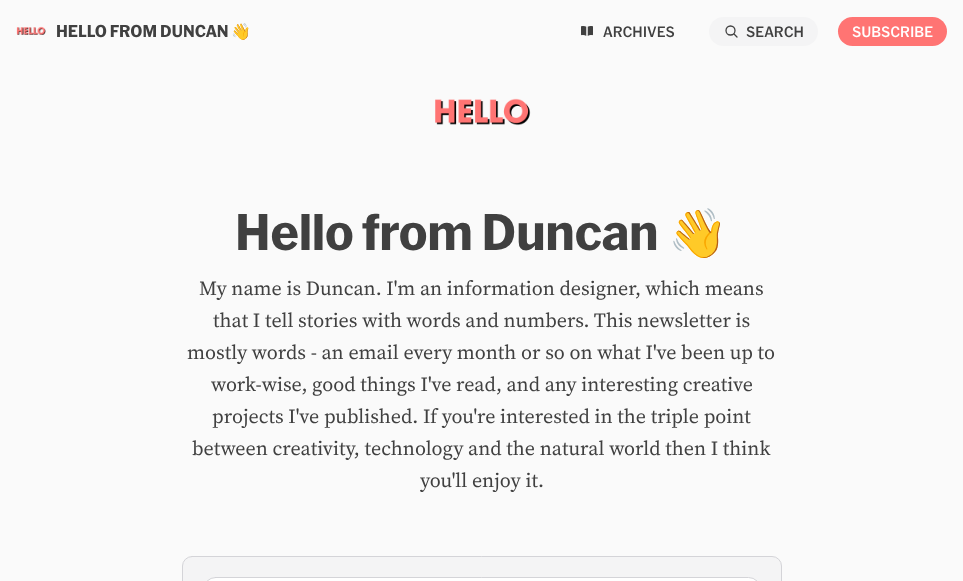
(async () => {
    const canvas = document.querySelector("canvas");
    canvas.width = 963;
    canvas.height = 581;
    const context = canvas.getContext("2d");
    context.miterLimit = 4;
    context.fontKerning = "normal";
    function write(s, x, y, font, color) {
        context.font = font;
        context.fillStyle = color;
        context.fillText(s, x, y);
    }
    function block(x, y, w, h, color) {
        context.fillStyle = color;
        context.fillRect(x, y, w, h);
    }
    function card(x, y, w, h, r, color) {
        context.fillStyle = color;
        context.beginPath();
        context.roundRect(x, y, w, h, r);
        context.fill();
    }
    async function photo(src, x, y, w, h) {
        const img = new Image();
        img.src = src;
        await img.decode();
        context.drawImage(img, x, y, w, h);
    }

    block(0, 0, 963, 581, "rgb(250, 250, 250)");
    await photo("media/1.png", 16, 26, 30, 9);
    write("HELLO FROM DUNCAN", 56, 37, "bold 16px 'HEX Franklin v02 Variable'", "rgb(64, 64, 64)");
    write("👋", 231, 37, "bold 16px Noto Color Emoji", "rgb(64, 64, 64)");
    await photo("media/2.png", 581, 26, 12, 10);
    write("ARCHIVES", 603, 37, "500 14px 'HEX Franklin v02 Variable'", "rgb(64, 64, 64)");
    card(709, 17, 109, 29, 14.5, "rgb(244, 244, 245)");
    context.beginPath();
    context.arc(730.5, 30.5, 4.5, 0, Math.PI * 2);
    context.strokeStyle = "rgb(64, 64, 64)";
    context.lineWidth = 1.3;
    context.stroke();
    context.beginPath();
    context.moveTo(734, 34);
    context.lineTo(737, 37);
    context.lineCap = "round";
    context.stroke();
    write("SEARCH", 746, 37, "500 14px 'HEX Franklin v02 Variable'", "rgb(64, 64, 64)");
    card(838, 17, 109, 29, 14.5, "rgb(255, 116, 115)");
    write("SUBSCRIBE", 852, 37, "500 14px 'HEX Franklin v02 Variable'", "rgb(255, 255, 255)");
    await photo("media/3.png", 435, 98, 96, 28);
    write("Hello from Duncan", 235, 250, "bold 48px 'HEX Franklin v02 Variable'", "rgb(64, 64, 64)");
    write("👋", 668, 250, "bold 48px Noto Color Emoji", "rgb(64, 64, 64)");
    write("My name is Duncan. I'm an information designer, which means", 199, 295, "20px 'Source Serif 4'", "rgb(64, 64, 64)");
    write("that I tell stories with words and numbers. This newsletter is", 213, 327, "20px 'Source Serif 4'", "rgb(64, 64, 64)");
    write("mostly words - an email every month or so on what I've been up to", 187, 359, "20px 'Source Serif 4'", "rgb(64, 64, 64)");
    write("work-wise, good things I've read, and any interesting creative", 211, 391, "20px 'Source Serif 4'", "rgb(64, 64, 64)");
    write("projects I've published. If you're interested in the triple point", 212, 423, "20px 'Source Serif 4'", "rgb(64, 64, 64)");
    write("between creativity, technology and the natural world then I think", 192, 455, "20px 'Source Serif 4'", "rgb(64, 64, 64)");
    write("you'll enjoy it.", 420, 487, "20px 'Source Serif 4'", "rgb(64, 64, 64)");
    context.fillStyle = "rgb(244, 244, 245)";
    context.beginPath();
    context.roundRect(182.5, 556.5, 599, 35, 9.5);
    context.fill();
    context.strokeStyle = "rgb(212, 212, 216)";
    context.lineWidth = 1;
    context.stroke();
    context.fillStyle = "rgb(255, 255, 255)";
    context.beginPath();
    context.roundRect(203.5, 577.5, 557, 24, 19.5);
    context.fill();
    context.stroke();
})();
